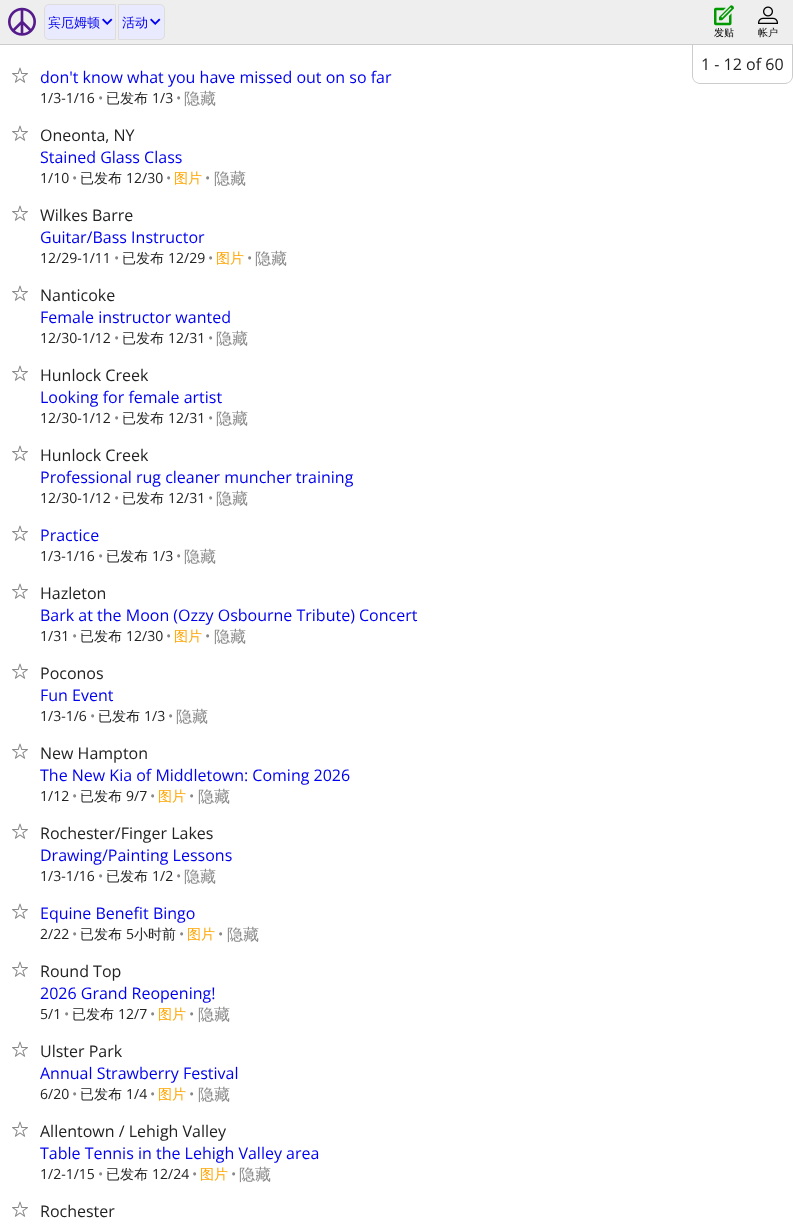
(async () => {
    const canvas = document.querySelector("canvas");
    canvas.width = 793;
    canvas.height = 1224;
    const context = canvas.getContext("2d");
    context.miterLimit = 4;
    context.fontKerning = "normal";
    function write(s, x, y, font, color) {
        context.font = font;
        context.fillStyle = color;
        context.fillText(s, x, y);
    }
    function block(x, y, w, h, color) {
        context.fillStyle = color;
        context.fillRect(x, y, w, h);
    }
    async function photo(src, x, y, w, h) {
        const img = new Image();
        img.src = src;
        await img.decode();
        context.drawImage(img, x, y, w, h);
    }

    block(0, 0, 793, 1224, "rgb(255, 255, 255)");
    block(0, 0, 793, 44, "rgb(238, 238, 238)");
    block(0, 44, 793, 1, "rgb(204, 204, 204)");
    await photo("media/1.png", 8, 7, 28, 29);
    context.fillStyle = "rgb(234, 234, 255)";
    context.beginPath();
    context.roundRect(44.5, 4.5, 71, 35, [4.5, 0, 0, 4.5]);
    context.fill();
    context.strokeStyle = "rgb(221, 221, 221)";
    context.stroke();
    write("宾厄姆顿", 48, 27, "500 13px WenQuanYi Zen Hei", "rgb(0, 0, 238)");
    await photo("media/2.png", 102, 18, 11, 7);
    context.fillStyle = "rgb(234, 234, 255)";
    context.beginPath();
    context.roundRect(118.5, 4.5, 46, 35, [0, 4.5, 4.5, 0]);
    context.fill();
    context.stroke();
    write("活动", 122, 27, "500 13px WenQuanYi Zen Hei", "rgb(0, 0, 238)");
    await photo("media/2.png", 150, 18, 11, 7);
    await photo("media/3.png", 714, 5, 20, 21);
    write("发贴", 714, 36, "500 10px WenQuanYi Zen Hei", "rgb(0, 0, 0)");
    await photo("media/4.png", 758, 6, 20, 18);
    write("帐户", 758, 36, "500 10px WenQuanYi Zen Hei", "rgb(0, 0, 0)");
    context.fillStyle = "rgb(204, 204, 204)";
    context.beginPath();
    context.moveTo(692, 45);
    context.lineTo(793, 45);
    context.lineTo(793, 76);
    context.bezierCurveTo(793, 80, 789, 84, 785, 84);
    context.lineTo(700, 84);
    context.bezierCurveTo(696, 84, 692, 80, 692, 76);
    context.closePath();
    context.moveTo(693, 45);
    context.lineTo(792, 45);
    context.lineTo(792, 76);
    context.bezierCurveTo(792, 80, 789, 83, 785, 83);
    context.lineTo(700, 83);
    context.bezierCurveTo(696, 83, 693, 80, 693, 76);
    context.closePath();
    context.fill("evenodd");
    write("1 - 12 of 60", 701, 70, "16px Open Sans", "rgb(34, 34, 34)");
    await photo("media/5.png", 12, 67, 16, 16);
    write("don't know what you have missed out on so far", 40, 83, "16px Open Sans", "rgb(0, 0, 238)");
    write("1/3-1/16", 40, 103, "14px Open Sans", "rgb(34, 34, 34)");
    write("•", 98, 103, "14px Open Sans", "rgb(136, 136, 136)");
    write("已发布", 106, 103, "500 14px WenQuanYi Zen Hei", "rgb(34, 34, 34)");
    write("1/3", 152, 103, "14px Open Sans", "rgb(34, 34, 34)");
    write("•", 176, 103, "14px Open Sans", "rgb(136, 136, 136)");
    write("隐藏", 184, 104, "500 16px WenQuanYi Zen Hei", "rgb(136, 136, 136)");
    await photo("media/5.png", 12, 125, 16, 16);
    write("Oneonta, NY", 40, 141, "16px Open Sans", "rgb(34, 34, 34)");
    write("Stained Glass Class", 40, 163, "16px Open Sans", "rgb(0, 0, 238)");
    write("1/10", 40, 183, "14px Open Sans", "rgb(34, 34, 34)");
    write("•", 72, 183, "14px Open Sans", "rgb(136, 136, 136)");
    write("已发布", 80, 183, "500 14px WenQuanYi Zen Hei", "rgb(34, 34, 34)");
    write("12/30", 126, 183, "14px Open Sans", "rgb(34, 34, 34)");
    write("•", 166, 183, "14px Open Sans", "rgb(136, 136, 136)");
    write("图片", 174, 183, "500 14px WenQuanYi Zen Hei", "rgb(255, 165, 0)");
    write("•", 205, 183, "14px Open Sans", "rgb(136, 136, 136)");
    write("隐藏", 214, 184, "500 16px WenQuanYi Zen Hei", "rgb(136, 136, 136)");
    await photo("media/5.png", 12, 205, 16, 16);
    write("Wilkes Barre", 40, 221, "16px Open Sans", "rgb(34, 34, 34)");
    write("Guitar/Bass Instructor", 40, 243, "16px Open Sans", "rgb(0, 0, 238)");
    write("12/29-1/11", 40, 263, "14px Open Sans", "rgb(34, 34, 34)");
    write("•", 114, 263, "14px Open Sans", "rgb(136, 136, 136)");
    write("已发布", 122, 263, "500 14px WenQuanYi Zen Hei", "rgb(34, 34, 34)");
    write("12/29", 168, 263, "14px Open Sans", "rgb(34, 34, 34)");
    write("•", 208, 263, "14px Open Sans", "rgb(136, 136, 136)");
    write("图片", 216, 263, "500 14px WenQuanYi Zen Hei", "rgb(255, 165, 0)");
    write("•", 247, 263, "14px Open Sans", "rgb(136, 136, 136)");
    write("隐藏", 255, 264, "500 16px WenQuanYi Zen Hei", "rgb(136, 136, 136)");
    await photo("media/5.png", 12, 285, 16, 16);
    write("Nanticoke", 40, 301, "16px Open Sans", "rgb(34, 34, 34)");
    write("Female instructor wanted", 40, 323, "16px Open Sans", "rgb(0, 0, 238)");
    write("12/30-1/12", 40, 343, "14px Open Sans", "rgb(34, 34, 34)");
    write("•", 114, 343, "14px Open Sans", "rgb(136, 136, 136)");
    write("已发布", 122, 343, "500 14px WenQuanYi Zen Hei", "rgb(34, 34, 34)");
    write("12/31", 168, 343, "14px Open Sans", "rgb(34, 34, 34)");
    write("•", 208, 343, "14px Open Sans", "rgb(136, 136, 136)");
    write("隐藏", 216, 344, "500 16px WenQuanYi Zen Hei", "rgb(136, 136, 136)");
    await photo("media/5.png", 12, 365, 16, 16);
    write("Hunlock Creek", 40, 381, "16px Open Sans", "rgb(34, 34, 34)");
    write("Looking for female artist", 40, 403, "16px Open Sans", "rgb(0, 0, 238)");
    write("12/30-1/12", 40, 423, "14px Open Sans", "rgb(34, 34, 34)");
    write("•", 114, 423, "14px Open Sans", "rgb(136, 136, 136)");
    write("已发布", 122, 423, "500 14px WenQuanYi Zen Hei", "rgb(34, 34, 34)");
    write("12/31", 168, 423, "14px Open Sans", "rgb(34, 34, 34)");
    write("•", 208, 423, "14px Open Sans", "rgb(136, 136, 136)");
    write("隐藏", 216, 424, "500 16px WenQuanYi Zen Hei", "rgb(136, 136, 136)");
    await photo("media/5.png", 12, 445, 16, 16);
    write("Hunlock Creek", 40, 461, "16px Open Sans", "rgb(34, 34, 34)");
    write("Professional rug cleaner muncher training", 40, 483, "16px Open Sans", "rgb(0, 0, 238)");
    write("12/30-1/12", 40, 503, "14px Open Sans", "rgb(34, 34, 34)");
    write("•", 114, 503, "14px Open Sans", "rgb(136, 136, 136)");
    write("已发布", 122, 503, "500 14px WenQuanYi Zen Hei", "rgb(34, 34, 34)");
    write("12/31", 168, 503, "14px Open Sans", "rgb(34, 34, 34)");
    write("•", 208, 503, "14px Open Sans", "rgb(136, 136, 136)");
    write("隐藏", 216, 504, "500 16px WenQuanYi Zen Hei", "rgb(136, 136, 136)");
    await photo("media/5.png", 12, 525, 16, 16);
    write("Practice", 40, 541, "16px Open Sans", "rgb(0, 0, 238)");
    write("1/3-1/16", 40, 561, "14px Open Sans", "rgb(34, 34, 34)");
    write("•", 98, 561, "14px Open Sans", "rgb(136, 136, 136)");
    write("已发布", 106, 561, "500 14px WenQuanYi Zen Hei", "rgb(34, 34, 34)");
    write("1/3", 152, 561, "14px Open Sans", "rgb(34, 34, 34)");
    write("•", 176, 561, "14px Open Sans", "rgb(136, 136, 136)");
    write("隐藏", 184, 562, "500 16px WenQuanYi Zen Hei", "rgb(136, 136, 136)");
    await photo("media/5.png", 12, 583, 16, 16);
    write("Hazleton", 40, 599, "16px Open Sans", "rgb(34, 34, 34)");
    write("Bark at the Moon (Ozzy Osbourne Tribute) Concert", 40, 621, "16px Open Sans", "rgb(0, 0, 238)");
    write("1/31", 40, 641, "14px Open Sans", "rgb(34, 34, 34)");
    write("•", 72, 641, "14px Open Sans", "rgb(136, 136, 136)");
    write("已发布", 80, 641, "500 14px WenQuanYi Zen Hei", "rgb(34, 34, 34)");
    write("12/30", 126, 641, "14px Open Sans", "rgb(34, 34, 34)");
    write("•", 166, 641, "14px Open Sans", "rgb(136, 136, 136)");
    write("图片", 174, 641, "500 14px WenQuanYi Zen Hei", "rgb(255, 165, 0)");
    write("•", 205, 641, "14px Open Sans", "rgb(136, 136, 136)");
    write("隐藏", 214, 642, "500 16px WenQuanYi Zen Hei", "rgb(136, 136, 136)");
    await photo("media/5.png", 12, 663, 16, 16);
    write("Poconos", 40, 679, "16px Open Sans", "rgb(34, 34, 34)");
    write("Fun Event", 40, 701, "16px Open Sans", "rgb(0, 0, 238)");
    write("1/3-1/6", 40, 721, "14px Open Sans", "rgb(34, 34, 34)");
    write("•", 90, 721, "14px Open Sans", "rgb(136, 136, 136)");
    write("已发布", 98, 721, "500 14px WenQuanYi Zen Hei", "rgb(34, 34, 34)");
    write("1/3", 144, 721, "14px Open Sans", "rgb(34, 34, 34)");
    write("•", 168, 721, "14px Open Sans", "rgb(136, 136, 136)");
    write("隐藏", 176, 722, "500 16px WenQuanYi Zen Hei", "rgb(136, 136, 136)");
    await photo("media/5.png", 12, 743, 16, 16);
    write("New Hampton", 40, 759, "16px Open Sans", "rgb(34, 34, 34)");
    write("The New Kia of Middletown: Coming 2026", 40, 781, "16px Open Sans", "rgb(0, 0, 238)");
    write("1/12", 40, 801, "14px Open Sans", "rgb(34, 34, 34)");
    write("•", 72, 801, "14px Open Sans", "rgb(136, 136, 136)");
    write("已发布", 80, 801, "500 14px WenQuanYi Zen Hei", "rgb(34, 34, 34)");
    write("9/7", 126, 801, "14px Open Sans", "rgb(34, 34, 34)");
    write("•", 150, 801, "14px Open Sans", "rgb(136, 136, 136)");
    write("图片", 158, 801, "500 14px WenQuanYi Zen Hei", "rgb(255, 165, 0)");
    write("•", 189, 801, "14px Open Sans", "rgb(136, 136, 136)");
    write("隐藏", 198, 802, "500 16px WenQuanYi Zen Hei", "rgb(136, 136, 136)");
    await photo("media/5.png", 12, 823, 16, 16);
    write("Rochester/Finger Lakes", 40, 839, "16px Open Sans", "rgb(34, 34, 34)");
    write("Drawing/Painting Lessons", 40, 861, "16px Open Sans", "rgb(0, 0, 238)");
    write("1/3-1/16", 40, 881, "14px Open Sans", "rgb(34, 34, 34)");
    write("•", 98, 881, "14px Open Sans", "rgb(136, 136, 136)");
    write("已发布", 106, 881, "500 14px WenQuanYi Zen Hei", "rgb(34, 34, 34)");
    write("1/2", 152, 881, "14px Open Sans", "rgb(34, 34, 34)");
    write("•", 176, 881, "14px Open Sans", "rgb(136, 136, 136)");
    write("隐藏", 184, 882, "500 16px WenQuanYi Zen Hei", "rgb(136, 136, 136)");
    await photo("media/5.png", 12, 903, 16, 16);
    write("Equine Benefit Bingo", 40, 919, "16px Open Sans", "rgb(0, 0, 238)");
    write("2/22", 40, 939, "14px Open Sans", "rgb(34, 34, 34)");
    write("•", 72, 939, "14px Open Sans", "rgb(136, 136, 136)");
    write("已发布", 80, 939, "500 14px WenQuanYi Zen Hei", "rgb(34, 34, 34)");
    write("5", 126, 939, "14px Open Sans", "rgb(34, 34, 34)");
    write("小时前", 134, 939, "500 14px WenQuanYi Zen Hei", "rgb(34, 34, 34)");
    write("•", 179, 939, "14px Open Sans", "rgb(136, 136, 136)");
    write("图片", 187, 939, "500 14px WenQuanYi Zen Hei", "rgb(255, 165, 0)");
    write("•", 218, 939, "14px Open Sans", "rgb(136, 136, 136)");
    write("隐藏", 227, 940, "500 16px WenQuanYi Zen Hei", "rgb(136, 136, 136)");
    await photo("media/5.png", 12, 961, 16, 16);
    write("Round Top", 40, 977, "16px Open Sans", "rgb(34, 34, 34)");
    write("2026 Grand Reopening!", 40, 999, "16px Open Sans", "rgb(0, 0, 238)");
    write("5/1", 40, 1019, "14px Open Sans", "rgb(34, 34, 34)");
    write("•", 64, 1019, "14px Open Sans", "rgb(136, 136, 136)");
    write("已发布", 72, 1019, "500 14px WenQuanYi Zen Hei", "rgb(34, 34, 34)");
    write("12/7", 118, 1019, "14px Open Sans", "rgb(34, 34, 34)");
    write("•", 150, 1019, "14px Open Sans", "rgb(136, 136, 136)");
    write("图片", 158, 1019, "500 14px WenQuanYi Zen Hei", "rgb(255, 165, 0)");
    write("•", 189, 1019, "14px Open Sans", "rgb(136, 136, 136)");
    write("隐藏", 198, 1020, "500 16px WenQuanYi Zen Hei", "rgb(136, 136, 136)");
    await photo("media/5.png", 12, 1041, 16, 16);
    write("Ulster Park", 40, 1057, "16px Open Sans", "rgb(34, 34, 34)");
    write("Annual Strawberry Festival", 40, 1079, "16px Open Sans", "rgb(0, 0, 238)");
    write("6/20", 40, 1099, "14px Open Sans", "rgb(34, 34, 34)");
    write("•", 72, 1099, "14px Open Sans", "rgb(136, 136, 136)");
    write("已发布", 80, 1099, "500 14px WenQuanYi Zen Hei", "rgb(34, 34, 34)");
    write("1/4", 126, 1099, "14px Open Sans", "rgb(34, 34, 34)");
    write("•", 150, 1099, "14px Open Sans", "rgb(136, 136, 136)");
    write("图片", 158, 1099, "500 14px WenQuanYi Zen Hei", "rgb(255, 165, 0)");
    write("•", 189, 1099, "14px Open Sans", "rgb(136, 136, 136)");
    write("隐藏", 198, 1100, "500 16px WenQuanYi Zen Hei", "rgb(136, 136, 136)");
    await photo("media/5.png", 12, 1121, 16, 16);
    write("Allentown / Lehigh Valley", 40, 1137, "16px Open Sans", "rgb(34, 34, 34)");
    write("Table Tennis in the Lehigh Valley area", 40, 1159, "16px Open Sans", "rgb(0, 0, 238)");
    write("1/2-1/15", 40, 1179, "14px Open Sans", "rgb(34, 34, 34)");
    write("•", 98, 1179, "14px Open Sans", "rgb(136, 136, 136)");
    write("已发布", 106, 1179, "500 14px WenQuanYi Zen Hei", "rgb(34, 34, 34)");
    write("12/24", 152, 1179, "14px Open Sans", "rgb(34, 34, 34)");
    write("•", 192, 1179, "14px Open Sans", "rgb(136, 136, 136)");
    write("图片", 200, 1179, "500 14px WenQuanYi Zen Hei", "rgb(255, 165, 0)");
    write("•", 231, 1179, "14px Open Sans", "rgb(136, 136, 136)");
    write("隐藏", 239, 1180, "500 16px WenQuanYi Zen Hei", "rgb(136, 136, 136)");
    await photo("media/5.png", 12, 1201, 16, 16);
    write("Rochester", 40, 1217, "16px Open Sans", "rgb(34, 34, 34)");
})();
